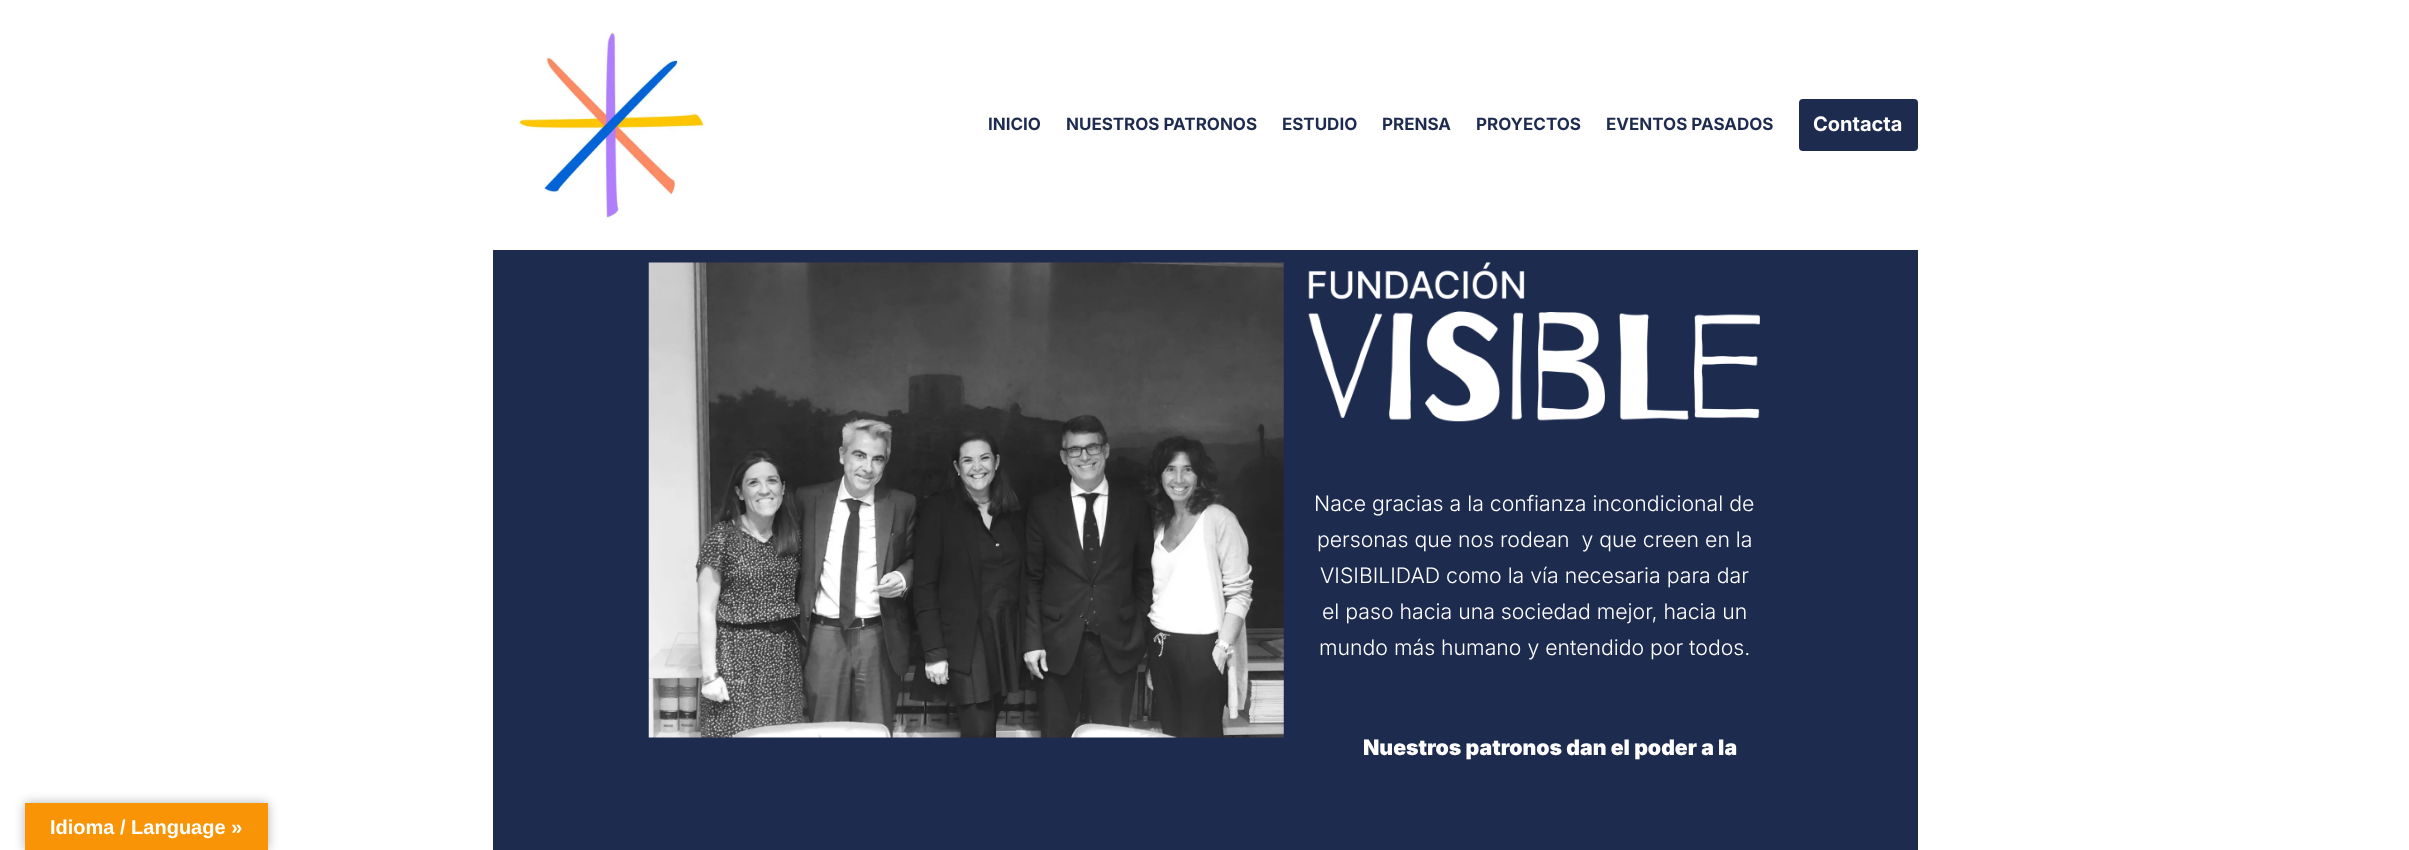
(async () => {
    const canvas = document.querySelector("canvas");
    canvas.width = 2409;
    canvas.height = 850;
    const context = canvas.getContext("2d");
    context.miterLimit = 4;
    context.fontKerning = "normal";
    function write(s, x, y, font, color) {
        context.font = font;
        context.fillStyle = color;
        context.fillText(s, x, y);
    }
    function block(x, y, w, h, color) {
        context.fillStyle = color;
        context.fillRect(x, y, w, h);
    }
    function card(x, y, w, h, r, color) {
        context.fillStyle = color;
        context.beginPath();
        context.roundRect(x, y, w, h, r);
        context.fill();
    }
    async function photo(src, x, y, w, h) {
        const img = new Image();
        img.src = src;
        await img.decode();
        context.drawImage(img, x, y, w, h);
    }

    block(0, 0, 2409, 850, "rgb(255, 255, 255)");
    await photo("media/1.png", 517, 33, 190, 186);
    write("INICIO", 988, 130, "bold 17px Inter", "rgb(29, 43, 79)");
    write("NUESTROS PATRONOS", 1066, 130, "bold 17px Inter", "rgb(29, 43, 79)");
    write("ESTUDIO", 1282, 130, "bold 17px Inter", "rgb(29, 43, 79)");
    write("PRENSA", 1382, 130, "bold 17px Inter", "rgb(29, 43, 79)");
    write("PROYECTOS", 1476, 130, "bold 17px Inter", "rgb(29, 43, 79)");
    write("EVENTOS PASADOS", 1606, 130, "bold 17px Inter", "rgb(29, 43, 79)");
    card(1799, 99, 119, 52, 4, "rgb(29, 43, 79)");
    write("Contacta", 1813, 131, "bold 20px Inter", "rgb(255, 255, 255)");
    block(493, 250, 1425, 600, "rgb(29, 43, 79)");
    await photo("media/2.png", 648, 262, 636, 476);
    await photo("media/3.png", 1308, 262, 452, 160);
    write("Nace gracias a la confianza incondicional de", 1314, 511, "300 21.25px Inter", "rgb(255, 255, 255)");
    write("personas que nos rodean  y que creen en la", 1317, 547, "300 21.25px Inter", "rgb(255, 255, 255)");
    write("VISIBILIDAD como la vía necesaria para dar", 1320, 583, "300 21.25px Inter", "rgb(255, 255, 255)");
    write("el paso hacia una sociedad mejor, hacia un", 1322, 619, "300 21.25px Inter", "rgb(255, 255, 255)");
    write("mundo más humano y entendido por todos.", 1319, 655, "300 21.25px Inter", "rgb(255, 255, 255)");
    write("Nuestros patronos dan el poder a la", 1363, 755, "900 21.25px Inter", "rgb(255, 255, 255)");
    context.fillStyle = "rgba(0, 0, 0, 0.3)";
    context.filter = "blur(5.5px)";
    context.beginPath();
    context.rect(25, 803, 243, 47);
    context.fill();
    context.filter = "none";
    block(25, 803, 243, 47, "rgb(248, 148, 6)");
    write("Idioma / Language »", 50, 834, "bold 20px Liberation Sans", "rgb(255, 255, 255)");
})();
